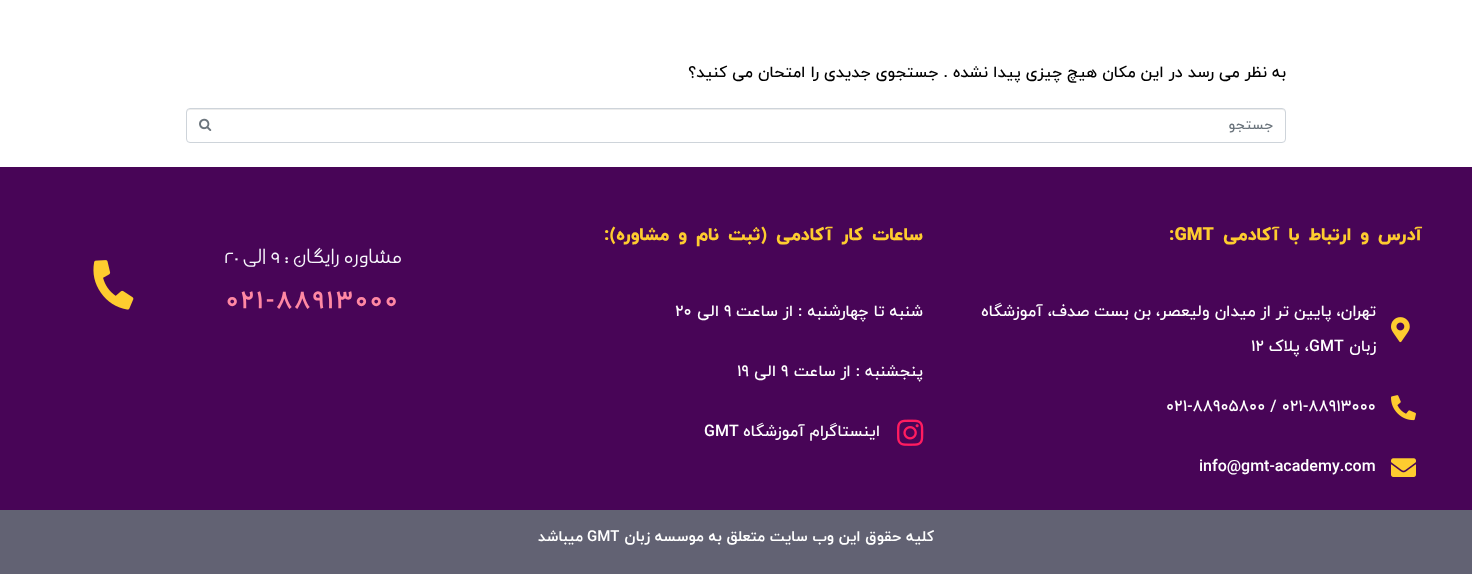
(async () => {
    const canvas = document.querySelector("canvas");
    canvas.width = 1472;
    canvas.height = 574;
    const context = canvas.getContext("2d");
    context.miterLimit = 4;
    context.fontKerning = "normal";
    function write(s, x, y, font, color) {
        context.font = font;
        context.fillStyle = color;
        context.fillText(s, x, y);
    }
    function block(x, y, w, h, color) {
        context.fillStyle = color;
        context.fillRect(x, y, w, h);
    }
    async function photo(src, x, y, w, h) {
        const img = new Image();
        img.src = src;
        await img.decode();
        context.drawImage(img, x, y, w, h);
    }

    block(0, 0, 1472, 574, "rgb(255, 255, 255)");
    context.direction = "rtl";
    write("به نظر می رسد در این مکان هیچ چیزی پیدا نشده . جستجوی جدیدی را امتحان می کنید؟", 1286, 77, "500 16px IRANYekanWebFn", "rgb(0, 0, 0)");
    context.fillStyle = "rgb(236, 236, 236)";
    context.beginPath();
    context.moveTo(190, 110);
    context.lineTo(1282, 110);
    context.bezierCurveTo(1284, 110, 1285, 111, 1285, 113);
    context.lineTo(1285, 112);
    context.bezierCurveTo(1285, 110, 1284, 109, 1282, 109);
    context.lineTo(190, 109);
    context.bezierCurveTo(188, 109, 187, 110, 187, 112);
    context.lineTo(187, 113);
    context.bezierCurveTo(187, 111, 188, 110, 190, 110);
    context.closePath();
    context.fill();
    context.beginPath();
    context.roundRect(186.5, 108.5, 1099, 34, 3.5);
    context.strokeStyle = "rgb(206, 212, 218)";
    context.stroke();
    write("جستجو", 1273, 129, "500 14px IRANYekanWebFn", "rgb(108, 117, 125)");
    await photo("media/1.png", 199, 118, 13, 13);
    block(0, 167, 1472, 343, "rgb(72, 5, 87)");
    context.wordSpacing = "3.5px";
    write("آدرس و ارتباط با آکادمی", 1422, 240, "800 18px IRANYekanWebFn", "rgb(254, 204, 47)");
    context.wordSpacing = "0px";
    context.direction = "ltr";
    write(":GMT", 1169, 240, "800 18px IRANYekanWebFn", "rgb(254, 204, 47)");
    await photo("media/2.png", 1391, 317, 19, 26);
    context.direction = "rtl";
    write("تهران، پایین تر از میدان ولیعصر، بن بست صدف، آموزشگاه", 1376, 316, "500 16px IRANYekanWebFn", "rgb(255, 255, 255)");
    write("زبان", 1376, 351, "500 16px IRANYekanWebFn", "rgb(255, 255, 255)");
    context.direction = "ltr";
    write("GMT", 1309, 351, "500 16px IRANYekanWebFn", "rgb(255, 255, 255)");
    context.direction = "rtl";
    write("، پلاک", 1309, 351, "500 16px IRANYekanWebFn", "rgb(255, 255, 255)");
    context.direction = "ltr";
    write("۱۲", 1251, 351, "500 16px IRANYekanWebFn", "rgb(255, 255, 255)");
    await photo("media/3.png", 1391, 395, 25, 26);
    write("021-88905800 / 021-88913000", 1166, 411, "500 16px IRANYekanWebFn", "rgb(255, 255, 255)");
    await photo("media/4.png", 1391, 458, 25, 19);
    write("info@gmt-academy.com", 1199, 471, "500 16px IRANYekanWebFn", "rgb(255, 255, 255)");
    context.wordSpacing = "3.5px";
    context.direction = "rtl";
    write("ساعات کار آکادمی (ثبت نام و مشاوره):", 923, 240, "800 18px IRANYekanWebFn", "rgb(254, 204, 47)");
    context.wordSpacing = "0px";
    write("شنبه تا چهارشنبه :", 923, 316, "500 16px IRANYekanWebFn", "rgb(255, 255, 255)");
    write("از ساعت", 793, 316, "500 16px IRANYekanWebFn", "rgb(255, 255, 255)");
    context.direction = "ltr";
    write("9", 724, 316, "500 16px IRANYekanWebFn", "rgb(255, 255, 255)");
    context.direction = "rtl";
    write("الی", 719, 316, "500 16px IRANYekanWebFn", "rgb(255, 255, 255)");
    context.direction = "ltr";
    write("20", 675, 316, "500 16px IRANYekanWebFn", "rgb(255, 255, 255)");
    context.direction = "rtl";
    write("پنجشنبه : از ساعت", 923, 376, "500 16px IRANYekanWebFn", "rgb(255, 255, 255)");
    context.direction = "ltr";
    write("9", 781, 376, "500 16px IRANYekanWebFn", "rgb(255, 255, 255)");
    context.direction = "rtl";
    write("الی", 776, 376, "500 16px IRANYekanWebFn", "rgb(255, 255, 255)");
    context.direction = "ltr";
    write("19", 737, 376, "500 16px IRANYekanWebFn", "rgb(255, 255, 255)");
    await photo("media/5.png", 897, 419, 27, 27);
    context.direction = "rtl";
    write("اینستاگرام آموزشگاه", 880, 436, "500 16px IRANYekanWebFn", "rgb(255, 255, 255)");
    context.direction = "ltr";
    write("GMT", 704, 436, "500 16px IRANYekanWebFn", "rgb(255, 255, 255)");
    context.direction = "rtl";
    write("مشاوره رایگان :", 402, 263, "300 20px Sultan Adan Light", "rgb(247, 247, 252)");
    context.direction = "ltr";
    write("9", 270, 263, "300 20px Sultan Adan Light", "rgb(247, 247, 252)");
    context.direction = "rtl";
    write("الی", 266, 263, "300 20px Sultan Adan Light", "rgb(247, 247, 252)");
    context.direction = "ltr";
    write("20", 224, 263, "300 20px Sultan Adan Light", "rgb(247, 247, 252)");
    context.letterSpacing = "2.5px";
    write("021-88913000", 226, 308, "bold 25px IRANYekanWebFn", "rgb(255, 136, 163)");
    await photo("media/6.png", 93, 260, 41, 50);
    block(0, 510, 1472, 64, "rgb(98, 98, 115)");
    context.letterSpacing = "0px";
    context.direction = "rtl";
    write("کلیه حقوق این وب سایت متعلق به موسسه زبان", 934, 541, "bold 15px IRANYekanWebFn", "rgb(255, 255, 255)");
    context.direction = "ltr";
    write("GMT", 587, 541, "bold 15px IRANYekanWebFn", "rgb(255, 255, 255)");
    context.direction = "rtl";
    write("میباشد", 583, 541, "bold 15px IRANYekanWebFn", "rgb(255, 255, 255)");
})();
